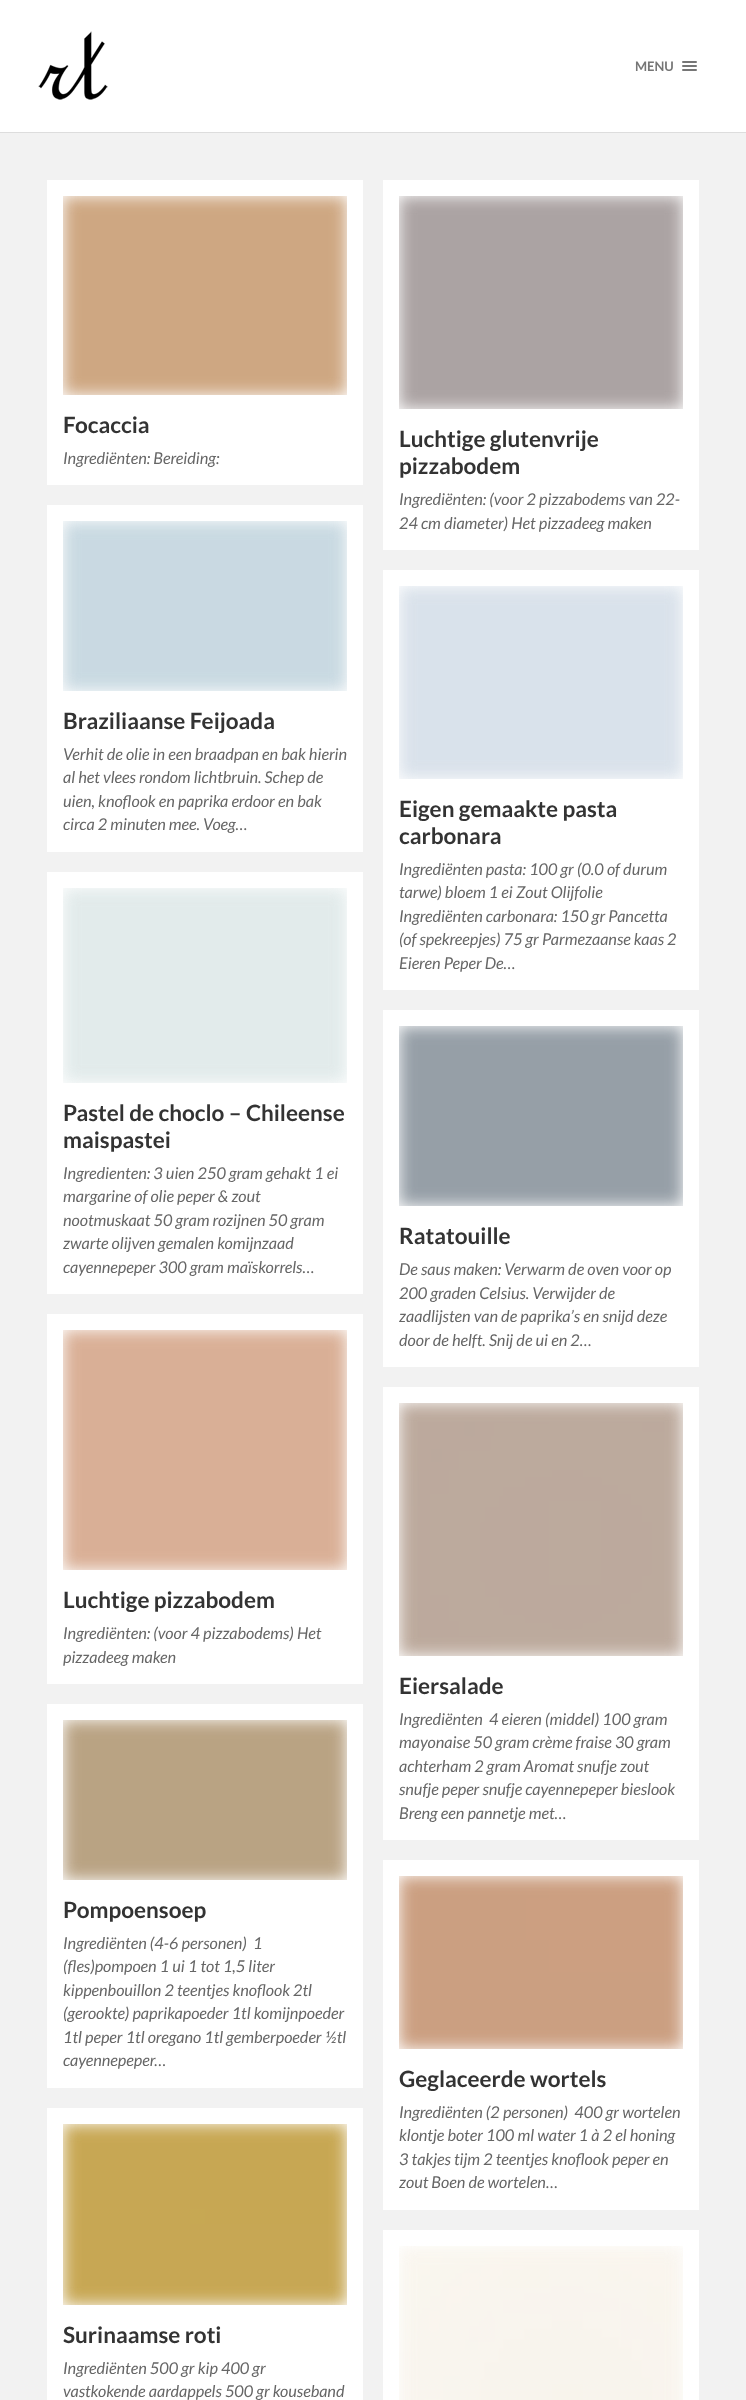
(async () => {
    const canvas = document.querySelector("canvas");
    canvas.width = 746;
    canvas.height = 2400;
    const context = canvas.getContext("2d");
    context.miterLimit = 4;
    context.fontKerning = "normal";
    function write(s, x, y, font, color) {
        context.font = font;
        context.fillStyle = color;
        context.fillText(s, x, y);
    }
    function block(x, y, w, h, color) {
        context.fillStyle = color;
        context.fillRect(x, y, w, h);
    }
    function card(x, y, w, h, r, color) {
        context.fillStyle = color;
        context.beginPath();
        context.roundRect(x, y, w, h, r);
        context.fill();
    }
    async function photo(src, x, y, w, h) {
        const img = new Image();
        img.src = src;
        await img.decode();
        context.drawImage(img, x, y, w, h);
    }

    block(0, 0, 746, 2400, "rgb(242, 242, 242)");
    block(0, 0, 746, 132, "rgb(255, 255, 255)");
    block(0, 132, 746, 1, "rgb(221, 221, 221)");
    await photo("media/1.png", 38, 31, 70, 69);
    write("MENU", 635, 71, "bold 13px Lato", "rgb(118, 118, 118)");
    card(682, 61, 15, 2, 1, "rgb(118, 118, 118)");
    card(682, 65, 15, 2, 1, "rgb(118, 118, 118)");
    card(682, 69, 15, 2, 1, "rgb(118, 118, 118)");
    block(47, 180, 316, 305, "rgb(255, 255, 255)");
    await photo("media/2.png", 63, 196, 284, 199);
    write("Focaccia", 63, 433, "bold 22.5px Lato", "rgb(51, 51, 51)");
    write("Ingrediënten: Bereiding:", 63, 464, "italic 16.25px Lato", "rgb(102, 102, 102)");
    block(383, 180, 316, 370, "rgb(255, 255, 255)");
    await photo("media/3.png", 399, 196, 284, 213);
    write("Luchtige glutenvrije", 399, 447, "bold 22.5px Lato", "rgb(51, 51, 51)");
    write("pizzabodem", 399, 474, "bold 22.5px Lato", "rgb(51, 51, 51)");
    write("Ingrediënten: (voor 2 pizzabodems van 22-", 399, 505, "italic 16.25px Lato", "rgb(102, 102, 102)");
    write("24 cm diameter) Het pizzadeeg maken", 399, 529, "italic 16.25px Lato", "rgb(102, 102, 102)");
    block(47, 505, 316, 347, "rgb(255, 255, 255)");
    await photo("media/4.png", 63, 521, 284, 170);
    write("Braziliaanse Feijoada", 63, 729, "bold 22.5px Lato", "rgb(51, 51, 51)");
    write("Verhit de olie in een braadpan en bak hierin", 63, 760, "italic 16.25px Lato", "rgb(102, 102, 102)");
    write("al het vlees rondom lichtbruin. Schep de", 63, 783, "italic 16.25px Lato", "rgb(102, 102, 102)");
    write("uien, knoflook en paprika erdoor en bak", 63, 807, "italic 16.25px Lato", "rgb(102, 102, 102)");
    write("circa 2 minuten mee. Voeg…", 63, 830, "italic 16.25px Lato", "rgb(102, 102, 102)");
    block(383, 570, 316, 420, "rgb(255, 255, 255)");
    await photo("media/5.png", 399, 586, 284, 193);
    write("Eigen gemaakte pasta", 399, 817, "bold 22.5px Lato", "rgb(51, 51, 51)");
    write("carbonara", 399, 844, "bold 22.5px Lato", "rgb(51, 51, 51)");
    write("Ingrediënten pasta: 100 gr (0.0 of durum", 399, 875, "italic 16.25px Lato", "rgb(102, 102, 102)");
    write("tarwe) bloem 1 ei Zout Olijfolie", 399, 898, "italic 16.25px Lato", "rgb(102, 102, 102)");
    write("Ingrediënten carbonara: 150 gr Pancetta", 399, 922, "italic 16.25px Lato", "rgb(102, 102, 102)");
    write("(of spekreepjes) 75 gr Parmezaanse kaas 2", 399, 945, "italic 16.25px Lato", "rgb(102, 102, 102)");
    write("Eieren Peper De…", 399, 969, "italic 16.25px Lato", "rgb(102, 102, 102)");
    block(47, 872, 316, 422, "rgb(255, 255, 255)");
    await photo("media/6.png", 63, 888, 284, 195);
    write("Pastel de choclo – Chileense", 63, 1121, "bold 22.5px Lato", "rgb(51, 51, 51)");
    write("maispastei", 63, 1148, "bold 22.5px Lato", "rgb(51, 51, 51)");
    write("Ingredienten: 3 uien 250 gram gehakt 1 ei", 63, 1179, "italic 16.25px Lato", "rgb(102, 102, 102)");
    write("margarine of olie peper & zout", 63, 1202, "italic 16.25px Lato", "rgb(102, 102, 102)");
    write("nootmuskaat 50 gram rozijnen 50 gram", 63, 1226, "italic 16.25px Lato", "rgb(102, 102, 102)");
    write("zwarte olijven gemalen komijnzaad", 63, 1249, "italic 16.25px Lato", "rgb(102, 102, 102)");
    write("cayennepeper 300 gram maïskorrels…", 63, 1273, "italic 16.25px Lato", "rgb(102, 102, 102)");
    block(383, 1010, 316, 357, "rgb(255, 255, 255)");
    await photo("media/7.png", 399, 1026, 284, 180);
    write("Ratatouille", 399, 1244, "bold 22.5px Lato", "rgb(51, 51, 51)");
    write("De saus maken: Verwarm de oven voor op", 399, 1275, "italic 16.25px Lato", "rgb(102, 102, 102)");
    write("200 graden Celsius. Verwijder de", 399, 1299, "italic 16.25px Lato", "rgb(102, 102, 102)");
    write("zaadlijsten van de paprika’s en snijd deze", 399, 1322, "italic 16.25px Lato", "rgb(102, 102, 102)");
    write("door de helft. Snij de ui en 2…", 399, 1346, "italic 16.25px Lato", "rgb(102, 102, 102)");
    block(47, 1314, 316, 370, "rgb(255, 255, 255)");
    await photo("media/8.png", 63, 1330, 284, 240);
    write("Luchtige pizzabodem", 63, 1608, "bold 22.5px Lato", "rgb(51, 51, 51)");
    write("Ingrediënten: (voor 4 pizzabodems) Het", 63, 1639, "italic 16.25px Lato", "rgb(102, 102, 102)");
    write("pizzadeeg maken", 63, 1663, "italic 16.25px Lato", "rgb(102, 102, 102)");
    block(383, 1387, 316, 453, "rgb(255, 255, 255)");
    await photo("media/9.png", 399, 1403, 284, 253);
    write("Eiersalade", 399, 1694, "bold 22.5px Lato", "rgb(51, 51, 51)");
    write("Ingrediënten  4 eieren (middel) 100 gram", 399, 1725, "italic 16.25px Lato", "rgb(102, 102, 102)");
    write("mayonaise 50 gram crème fraise 30 gram", 399, 1748, "italic 16.25px Lato", "rgb(102, 102, 102)");
    write("achterham 2 gram Aromat snufje zout", 399, 1772, "italic 16.25px Lato", "rgb(102, 102, 102)");
    write("snufje peper snufje cayennepeper bieslook", 399, 1795, "italic 16.25px Lato", "rgb(102, 102, 102)");
    write("Breng een pannetje met…", 399, 1819, "italic 16.25px Lato", "rgb(102, 102, 102)");
    block(47, 1704, 316, 384, "rgb(255, 255, 255)");
    await photo("media/10.png", 63, 1720, 284, 160);
    write("Pompoensoep", 63, 1918, "bold 22.5px Lato", "rgb(51, 51, 51)");
    write("Ingrediënten (4-6 personen)  1", 63, 1949, "italic 16.25px Lato", "rgb(102, 102, 102)");
    write("(fles)pompoen 1 ui 1 tot 1,5 liter", 63, 1972, "italic 16.25px Lato", "rgb(102, 102, 102)");
    write("kippenbouillon 2 teentjes knoflook 2tl", 63, 1996, "italic 16.25px Lato", "rgb(102, 102, 102)");
    write("(gerookte) paprikapoeder 1tl komijnpoeder", 63, 2019, "italic 16.25px Lato", "rgb(102, 102, 102)");
    write("1tl peper 1tl oregano 1tl gemberpoeder ½tl", 63, 2043, "italic 16.25px Lato", "rgb(102, 102, 102)");
    write("cayennepeper…", 63, 2066, "italic 16.25px Lato", "rgb(102, 102, 102)");
    block(383, 1860, 316, 350, "rgb(255, 255, 255)");
    await photo("media/11.png", 399, 1876, 284, 173);
    write("Geglaceerde wortels", 399, 2087, "bold 22.5px Lato", "rgb(51, 51, 51)");
    write("Ingrediënten (2 personen)  400 gr wortelen", 399, 2118, "italic 16.25px Lato", "rgb(102, 102, 102)");
    write("klontje boter 100 ml water 1 à 2 el honing", 399, 2141, "italic 16.25px Lato", "rgb(102, 102, 102)");
    write("3 takjes tijm 2 teentjes knoflook peper en", 399, 2165, "italic 16.25px Lato", "rgb(102, 102, 102)");
    write("zout Boen de wortelen…", 399, 2188, "italic 16.25px Lato", "rgb(102, 102, 102)");
    block(47, 2108, 316, 292, "rgb(255, 255, 255)");
    await photo("media/12.png", 63, 2124, 284, 181);
    write("Surinaamse roti", 63, 2343, "bold 22.5px Lato", "rgb(51, 51, 51)");
    write("Ingrediënten 500 gr kip 400 gr", 63, 2374, "italic 16.25px Lato", "rgb(102, 102, 102)");
    write("vastkokende aardappels 500 gr kouseband", 63, 2397, "italic 16.25px Lato", "rgb(102, 102, 102)");
    block(383, 2230, 316, 170, "rgb(255, 255, 255)");
    await photo("media/13.png", 399, 2246, 284, 154);
})();
